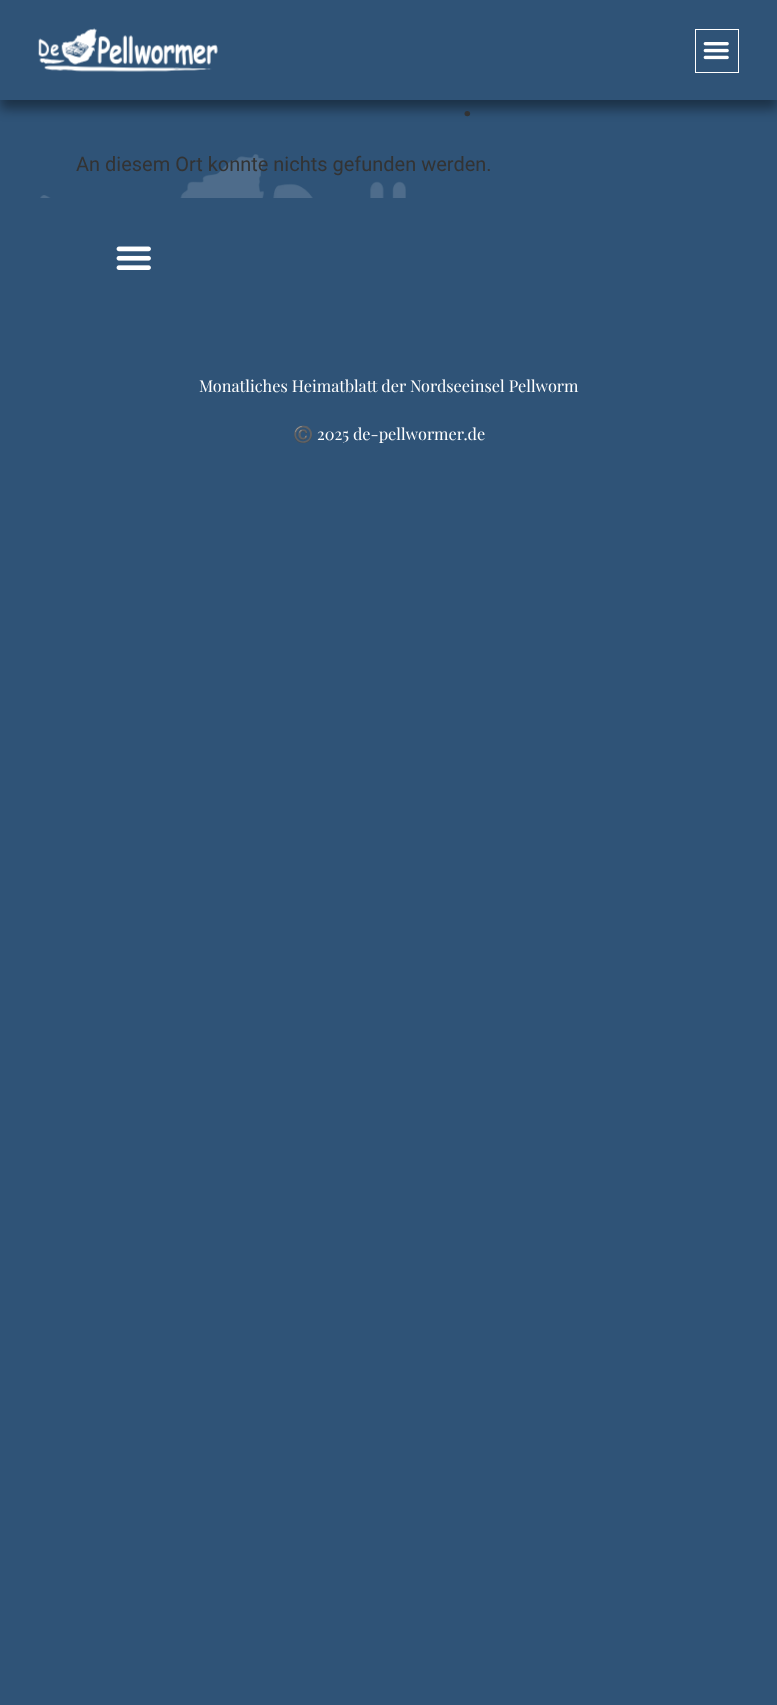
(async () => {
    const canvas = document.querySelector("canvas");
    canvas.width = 777;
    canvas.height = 1705;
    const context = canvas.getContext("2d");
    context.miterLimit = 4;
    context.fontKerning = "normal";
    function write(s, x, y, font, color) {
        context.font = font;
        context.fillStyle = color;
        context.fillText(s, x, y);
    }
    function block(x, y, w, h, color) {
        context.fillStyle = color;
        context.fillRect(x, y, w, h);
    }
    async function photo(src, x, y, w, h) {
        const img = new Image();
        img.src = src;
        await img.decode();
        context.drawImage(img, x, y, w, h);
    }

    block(0, 0, 777, 1705, "rgb(47, 83, 119)");
    await photo("media/1.png", 40, 154, 366, 44);
    context.fillStyle = "rgba(0, 0, 0, 0.4)";
    context.filter = "blur(6px)";
    context.beginPath();
    context.rect(0, 9, 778, 100);
    context.fill();
    context.filter = "none";
    block(0, 0, 777, 100, "rgb(47, 83, 119)");
    await photo("media/2.png", 38, 28, 180, 44);
    context.strokeStyle = "rgb(255, 255, 255)";
    context.strokeRect(695.5, 29.5, 43, 43);
    await photo("media/3.png", 703, 42, 26, 18);
    write(".", 461, 116, "50px Roboto", "rgb(51, 51, 51)");
    write("An diesem Ort konnte nichts gefunden werden.", 76, 171, "20px Roboto", "rgb(51, 51, 51)");
    await photo("media/4.png", 116, 246, 35, 24);
    write("Monatliches Heimatblatt der Nordseeinsel Pellworm", 199, 392, "16.25px Playfair Display", "rgb(255, 255, 255)");
    write("©️", 293, 440, "16.25px Noto Color Emoji", "rgb(255, 255, 255)");
    write("2025 de-pellwormer.de", 317, 440, "16.25px Playfair Display", "rgb(255, 255, 255)");
})();
